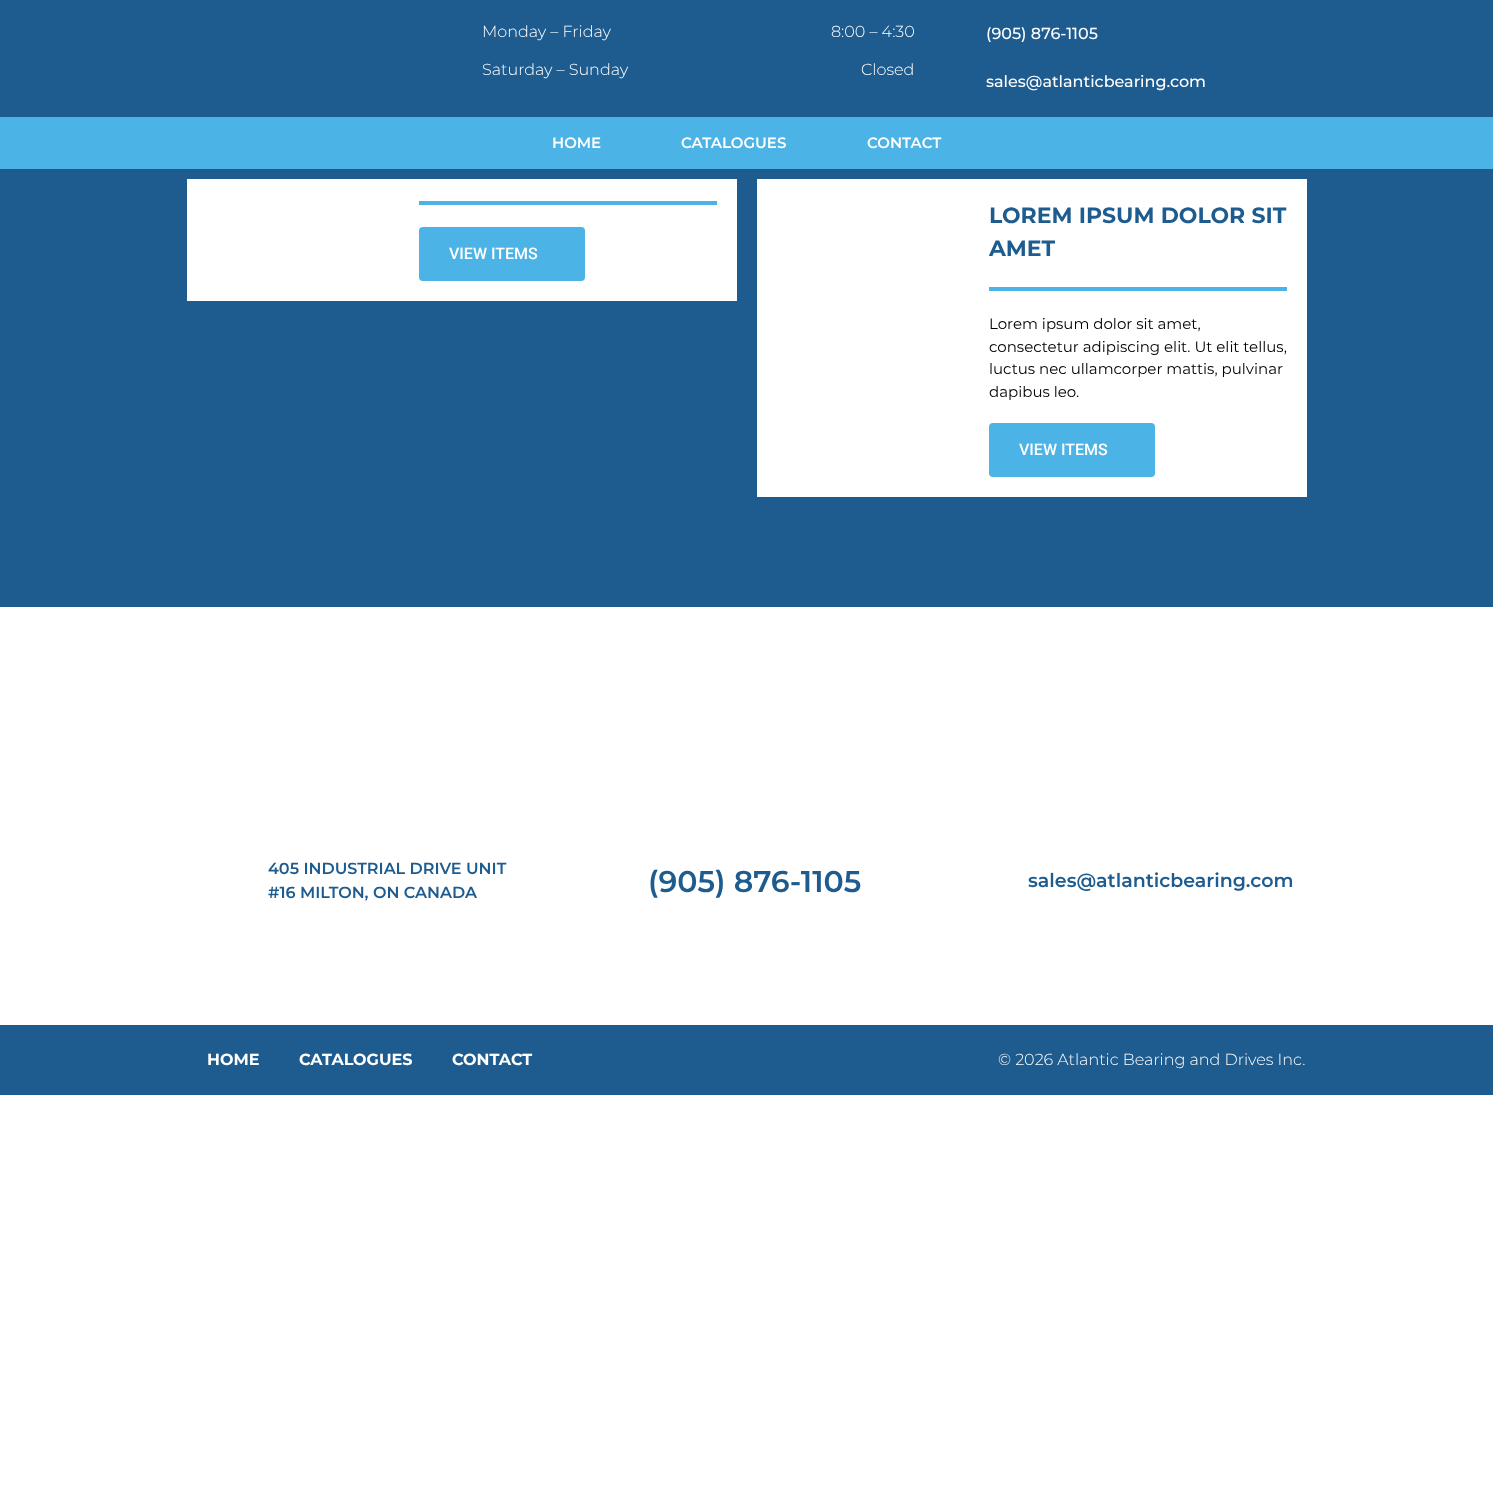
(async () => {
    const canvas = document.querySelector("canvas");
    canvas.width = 1493;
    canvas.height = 1498;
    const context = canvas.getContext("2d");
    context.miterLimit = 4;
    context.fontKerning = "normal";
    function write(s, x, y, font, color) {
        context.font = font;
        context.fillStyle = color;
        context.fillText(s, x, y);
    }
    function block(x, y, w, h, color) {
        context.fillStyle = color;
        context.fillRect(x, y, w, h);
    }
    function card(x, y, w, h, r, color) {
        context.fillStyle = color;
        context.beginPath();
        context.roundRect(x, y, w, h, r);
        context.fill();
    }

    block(0, 0, 1493, 1498, "rgb(255, 255, 255)");
    block(0, 0, 1493, 117, "rgb(30, 92, 143)");
    write("Monday – Friday", 482, 37, "300 16px Montserrat", "rgb(255, 255, 255)");
    write("Saturday – Sunday", 482, 75, "300 16px Montserrat", "rgb(255, 255, 255)");
    write("8:00 – 4:30", 831, 37, "300 16px Montserrat", "rgb(255, 255, 255)");
    write("Closed", 861, 75, "300 16px Montserrat", "rgb(255, 255, 255)");
    write("(905) 876-1105", 986, 39, "500 16px Montserrat", "rgb(255, 255, 255)");
    write("sales@atlanticbearing.com", 986, 87, "500 16px Montserrat", "rgb(255, 255, 255)");
    block(0, 117, 1493, 52, "rgb(75, 179, 230)");
    write("HOME", 552, 148, "600 15px Montserrat", "rgb(255, 255, 255)");
    write("CATALOGUES", 681, 148, "600 15px Montserrat", "rgb(255, 255, 255)");
    write("CONTACT", 867, 148, "600 15px Montserrat", "rgb(255, 255, 255)");
    block(0, 169, 1493, 438, "rgb(30, 92, 143)");
    block(187, 179, 550, 122, "rgb(255, 255, 255)");
    block(419, 201, 298, 4, "rgb(75, 179, 230)");
    card(419, 227, 166, 54, 4, "rgb(75, 179, 230)");
    write("VIEW ITEMS", 449, 259, "500 16px Roboto", "rgb(255, 255, 255)");
    block(757, 179, 550, 318, "rgb(255, 255, 255)");
    write("LOREM IPSUM DOLOR SIT", 989, 223, "bold 22px Montserrat", "rgb(30, 92, 143)");
    write("AMET", 989, 256, "bold 22px Montserrat", "rgb(30, 92, 143)");
    block(989, 287, 298, 4, "rgb(75, 179, 230)");
    write("Lorem ipsum dolor sit amet,", 989, 329, "15px Montserrat", "rgb(0, 0, 0)");
    write("consectetur adipiscing elit. Ut elit tellus,", 989, 352, "15px Montserrat", "rgb(0, 0, 0)");
    write("luctus nec ullamcorper mattis, pulvinar", 989, 374, "15px Montserrat", "rgb(0, 0, 0)");
    write("dapibus leo.", 989, 397, "15px Montserrat", "rgb(0, 0, 0)");
    card(989, 423, 166, 54, 4, "rgb(75, 179, 230)");
    write("VIEW ITEMS", 1019, 455, "500 16px Roboto", "rgb(255, 255, 255)");
    write("405 INDUSTRIAL DRIVE UNIT", 268, 874, "600 16px Montserrat", "rgb(30, 92, 143)");
    write("#16 MILTON, ON CANADA", 268, 898, "600 16px Montserrat", "rgb(30, 92, 143)");
    write("(905) 876-1105", 648, 892, "600 30px Montserrat", "rgb(30, 92, 143)");
    write("sales@atlanticbearing.com", 1028, 887, "600 19px Montserrat", "rgb(30, 92, 143)");
    block(0, 1025, 1493, 70, "rgb(30, 92, 143)");
    write("HOME", 207, 1065, "bold 16px Montserrat", "rgb(255, 255, 255)");
    write("CATALOGUES", 299, 1065, "bold 16px Montserrat", "rgb(255, 255, 255)");
    write("CONTACT", 452, 1065, "bold 16px Montserrat", "rgb(255, 255, 255)");
    write("© 2026 Atlantic Bearing and Drives Inc.", 998, 1065, "300 16px Montserrat", "rgb(255, 255, 255)");
})();
